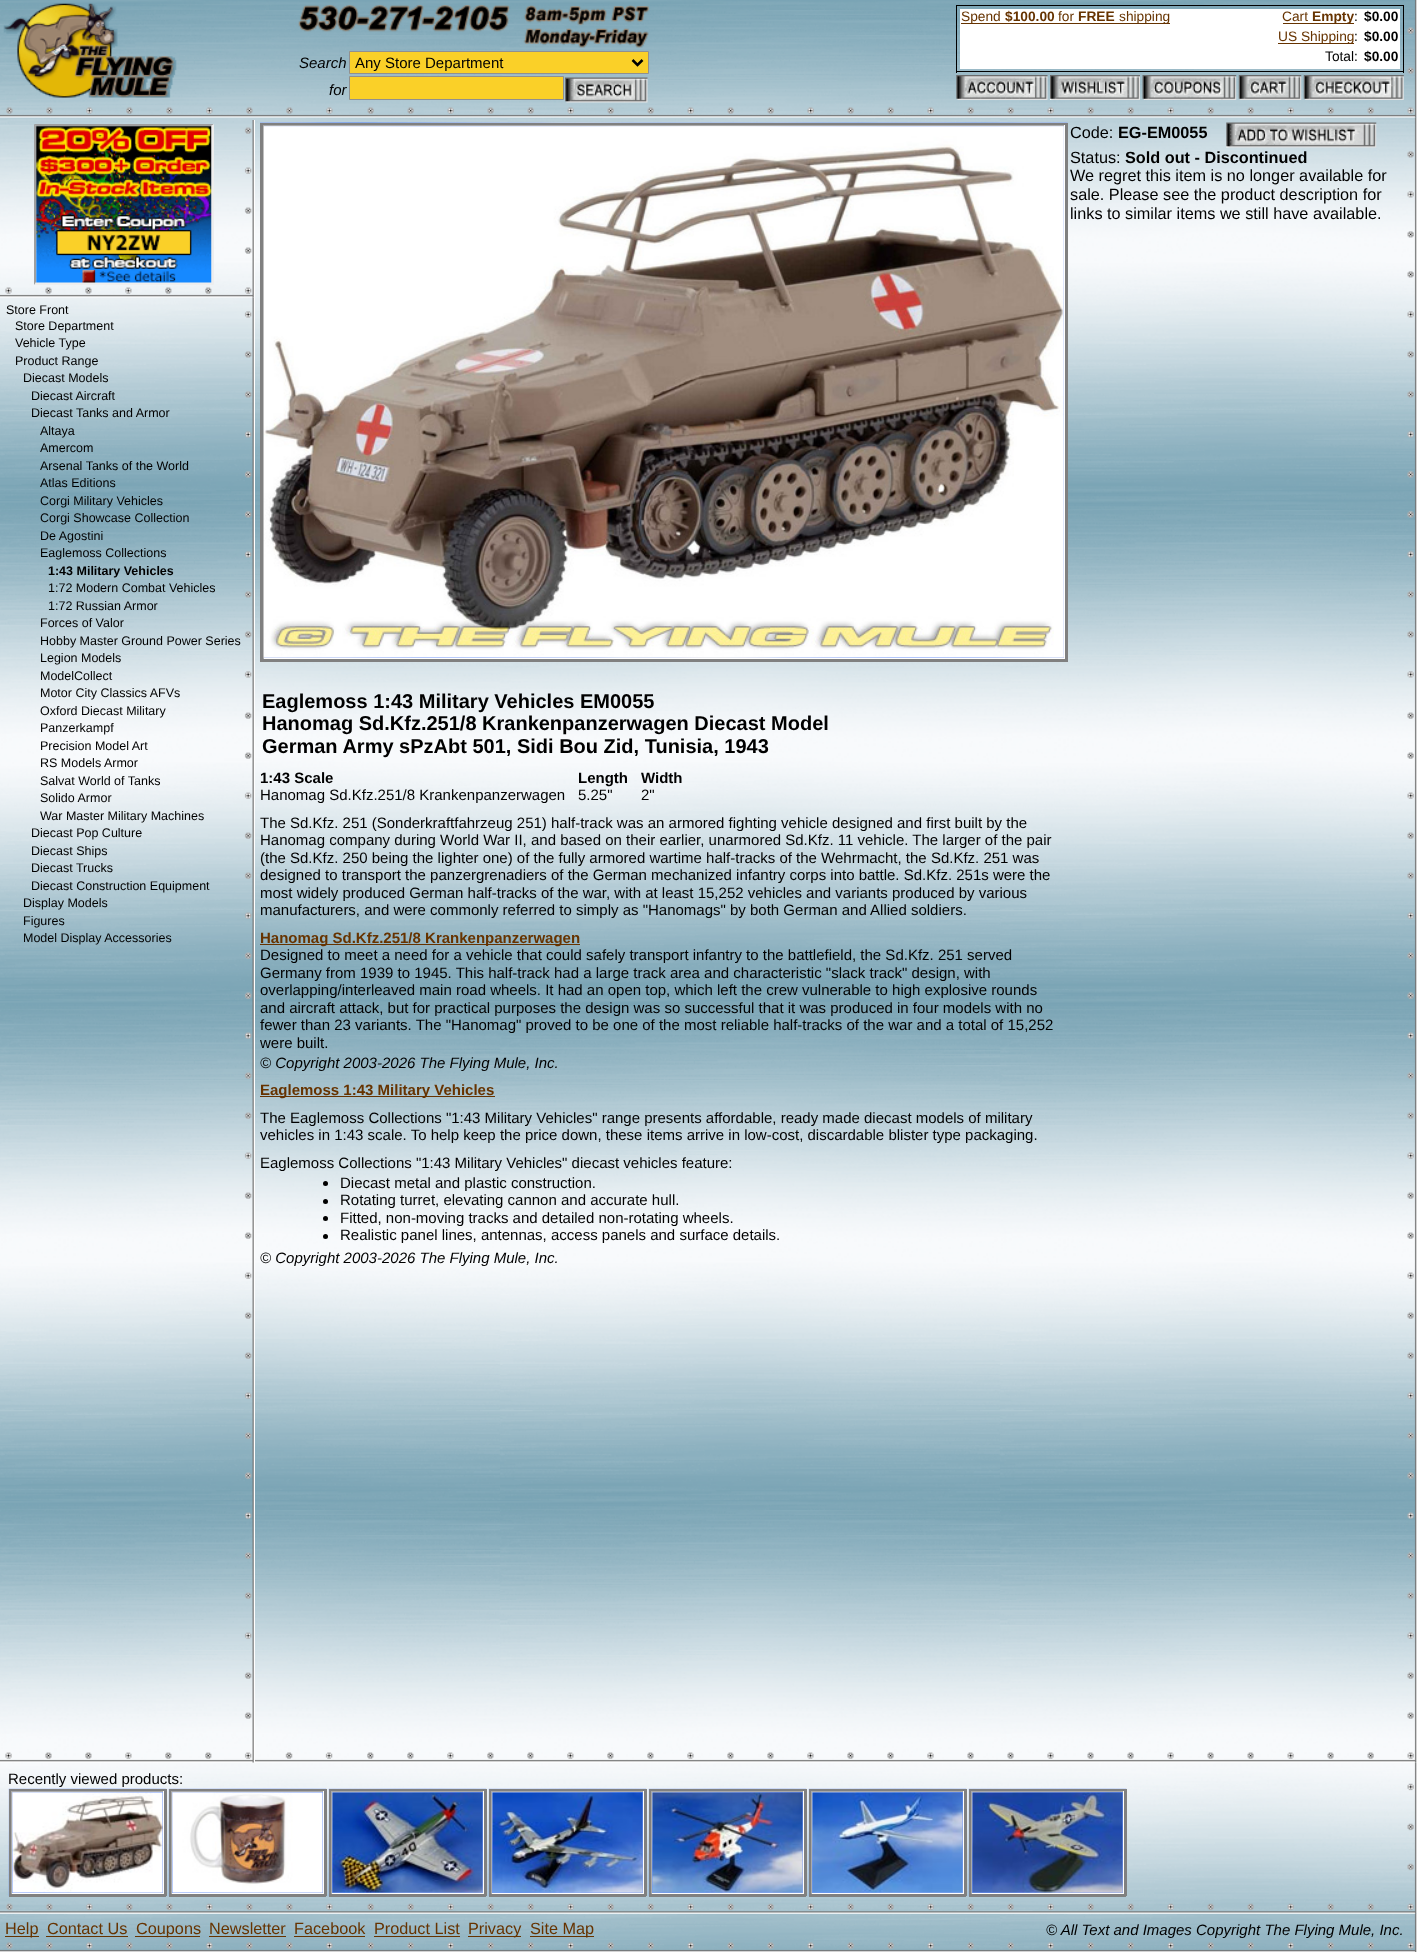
(async () => {
    const canvas = document.querySelector("canvas");
    canvas.width = 1417;
    canvas.height = 1952;
    const context = canvas.getContext("2d");
    context.miterLimit = 4;
    context.fontKerning = "normal";
    function write(s, x, y, font, color) {
        context.font = font;
        context.fillStyle = color;
        context.fillText(s, x, y);
    }
    function block(x, y, w, h, color) {
        context.fillStyle = color;
        context.fillRect(x, y, w, h);
    }
    async function photo(src, x, y, w, h) {
        const img = new Image();
        img.src = src;
        await img.decode();
        context.drawImage(img, x, y, w, h);
    }

    block(0, 0, 1417, 1952, "rgb(255, 255, 255)");
    await photo("media/1.png", 0, 0, 1417, 1951);
    await photo("media/2.png", 0, 0, 1417, 118);
    await photo("media/3.png", 3, 3, 174, 95);
    block(956, 5, 448, 1, "rgb(0, 0, 0)");
    block(1403, 5, 1, 68, "rgb(0, 0, 0)");
    block(956, 71, 448, 1, "rgb(0, 0, 0)");
    block(956, 5, 1, 68, "rgb(0, 0, 0)");
    block(960, 9, 440, 60, "rgb(255, 255, 255)");
    block(961, 23, 209, 1, "rgb(102, 51, 0)");
    write("Spend", 961, 21, "13.75px Liberation Sans", "rgb(102, 51, 0)");
    write("$100.00", 1005, 21, "bold 13.75px Liberation Sans", "rgb(102, 51, 0)");
    write("for", 1058, 21, "13.75px Liberation Sans", "rgb(102, 51, 0)");
    write("FREE", 1078, 21, "bold 13.75px Liberation Sans", "rgb(102, 51, 0)");
    write("shipping", 1119, 21, "13.75px Liberation Sans", "rgb(102, 51, 0)");
    write("Cart", 1282, 21, "13.75px Liberation Sans", "rgb(102, 51, 0)");
    block(1283, 23, 71, 1, "rgb(102, 51, 0)");
    write("Empty", 1312, 21, "bold 13.75px Liberation Sans", "rgb(102, 51, 0)");
    write(":", 1354, 21, "13.75px Liberation Sans", "rgb(0, 0, 0)");
    write("$0.00", 1364, 21, "bold 13.75px Liberation Sans", "rgb(0, 0, 0)");
    block(1278, 43, 76, 1, "rgb(102, 51, 0)");
    write("US Shipping", 1278, 41, "13.75px Liberation Sans", "rgb(102, 51, 0)");
    write(":", 1354, 41, "13.75px Liberation Sans", "rgb(0, 0, 0)");
    write("$0.00", 1364, 41, "bold 13.75px Liberation Sans", "rgb(0, 0, 0)");
    write("Total:", 1325, 61, "13.75px Liberation Sans", "rgb(0, 0, 0)");
    write("$0.00", 1364, 61, "bold 13.75px Liberation Sans", "rgb(0, 0, 0)");
    await photo("media/4.png", 956, 75, 92, 25);
    await photo("media/5.png", 1050, 75, 90, 25);
    await photo("media/6.png", 1142, 75, 95, 25);
    await photo("media/7.png", 1238, 75, 64, 25);
    await photo("media/8.png", 1303, 75, 101, 25);
    await photo("media/9.png", 298, 5, 351, 43);
    write("Search", 299, 68, "italic 15px Liberation Sans", "rgb(0, 0, 0)");
    context.fillStyle = "rgb(250, 208, 40)";
    context.beginPath();
    context.rect(349.5, 51.5, 299, 22);
    context.fill();
    context.strokeStyle = "rgb(144, 144, 144)";
    context.stroke();
    context.beginPath();
    context.moveTo(632.5, 60);
    context.lineTo(637.5, 65);
    context.lineTo(642.5, 60);
    context.strokeStyle = "rgb(0, 0, 0)";
    context.lineWidth = 2.5;
    context.stroke();
    write("Any Store Department", 355, 68, "15px Liberation Sans", "rgb(0, 0, 0)");
    write("for", 329, 95, "italic 15px Liberation Sans", "rgb(0, 0, 0)");
    context.fillStyle = "rgb(250, 208, 40)";
    context.beginPath();
    context.rect(349.5, 76.5, 214, 23);
    context.fill();
    context.strokeStyle = "rgb(144, 144, 144)";
    context.lineWidth = 1;
    context.stroke();
    await photo("media/10.png", 565, 77, 83, 26);
    await photo("media/11.png", 0, 120, 255, 178);
    context.fillStyle = "rgb(159, 159, 159)";
    context.beginPath();
    context.moveTo(34, 124);
    context.lineTo(214, 124);
    context.lineTo(211, 126);
    context.lineTo(36, 126);
    context.closePath();
    context.fill();
    context.fillStyle = "rgb(238, 238, 238)";
    context.beginPath();
    context.moveTo(214, 124);
    context.lineTo(214, 285);
    context.lineTo(211, 282);
    context.lineTo(211, 126);
    context.closePath();
    context.fill();
    context.beginPath();
    context.moveTo(214, 285);
    context.lineTo(34, 285);
    context.lineTo(36, 282);
    context.lineTo(211, 282);
    context.closePath();
    context.fill();
    context.fillStyle = "rgb(159, 159, 159)";
    context.beginPath();
    context.moveTo(34, 285);
    context.lineTo(34, 124);
    context.lineTo(36, 126);
    context.lineTo(36, 282);
    context.closePath();
    context.fill();
    await photo("media/12.png", 36, 126, 176, 157);
    await photo("media/13.png", 0, 297, 255, 1466);
    write("Store Front", 6, 314, "12.5px Liberation Sans", "rgb(0, 0, 0)");
    write("Store Department", 15, 330, "12.5px Liberation Sans", "rgb(0, 0, 0)");
    write("Vehicle Type", 15, 347, "12.5px Liberation Sans", "rgb(0, 0, 0)");
    write("Product Range", 15, 365, "12.5px Liberation Sans", "rgb(0, 0, 0)");
    write("Diecast Models", 23, 382, "12.5px Liberation Sans", "rgb(0, 0, 0)");
    write("Diecast Aircraft", 31, 400, "12.5px Liberation Sans", "rgb(0, 0, 0)");
    write("Diecast Tanks and Armor", 31, 417, "12.5px Liberation Sans", "rgb(0, 0, 0)");
    write("Altaya", 40, 435, "12.5px Liberation Sans", "rgb(0, 0, 0)");
    write("Amercom", 40, 452, "12.5px Liberation Sans", "rgb(0, 0, 0)");
    write("Arsenal Tanks of the World", 40, 470, "12.5px Liberation Sans", "rgb(0, 0, 0)");
    write("Atlas Editions", 40, 487, "12.5px Liberation Sans", "rgb(0, 0, 0)");
    write("Corgi Military Vehicles", 40, 505, "12.5px Liberation Sans", "rgb(0, 0, 0)");
    write("Corgi Showcase Collection", 40, 522, "12.5px Liberation Sans", "rgb(0, 0, 0)");
    write("De Agostini", 40, 540, "12.5px Liberation Sans", "rgb(0, 0, 0)");
    write("Eaglemoss Collections", 40, 557, "12.5px Liberation Sans", "rgb(0, 0, 0)");
    write("1:43 Military Vehicles", 48, 575, "bold 12.5px Liberation Sans", "rgb(0, 0, 0)");
    write("1:72 Modern Combat Vehicles", 48, 592, "12.5px Liberation Sans", "rgb(0, 0, 0)");
    write("1:72 Russian Armor", 48, 610, "12.5px Liberation Sans", "rgb(0, 0, 0)");
    write("Forces of Valor", 40, 627, "12.5px Liberation Sans", "rgb(0, 0, 0)");
    write("Hobby Master Ground Power Series", 40, 645, "12.5px Liberation Sans", "rgb(0, 0, 0)");
    write("Legion Models", 40, 662, "12.5px Liberation Sans", "rgb(0, 0, 0)");
    write("ModelCollect", 40, 680, "12.5px Liberation Sans", "rgb(0, 0, 0)");
    write("Motor City Classics AFVs", 40, 697, "12.5px Liberation Sans", "rgb(0, 0, 0)");
    write("Oxford Diecast Military", 40, 715, "12.5px Liberation Sans", "rgb(0, 0, 0)");
    write("Panzerkampf", 40, 732, "12.5px Liberation Sans", "rgb(0, 0, 0)");
    write("Precision Model Art", 40, 750, "12.5px Liberation Sans", "rgb(0, 0, 0)");
    write("RS Models Armor", 40, 767, "12.5px Liberation Sans", "rgb(0, 0, 0)");
    write("Salvat World of Tanks", 40, 785, "12.5px Liberation Sans", "rgb(0, 0, 0)");
    write("Solido Armor", 40, 802, "12.5px Liberation Sans", "rgb(0, 0, 0)");
    write("War Master Military Machines", 40, 820, "12.5px Liberation Sans", "rgb(0, 0, 0)");
    write("Diecast Pop Culture", 31, 837, "12.5px Liberation Sans", "rgb(0, 0, 0)");
    write("Diecast Ships", 31, 855, "12.5px Liberation Sans", "rgb(0, 0, 0)");
    write("Diecast Trucks", 31, 872, "12.5px Liberation Sans", "rgb(0, 0, 0)");
    write("Diecast Construction Equipment", 31, 890, "12.5px Liberation Sans", "rgb(0, 0, 0)");
    write("Display Models", 23, 907, "12.5px Liberation Sans", "rgb(0, 0, 0)");
    write("Figures", 23, 925, "12.5px Liberation Sans", "rgb(0, 0, 0)");
    write("Model Display Accessories", 23, 942, "12.5px Liberation Sans", "rgb(0, 0, 0)");
    await photo("media/14.png", 255, 117, 1162, 1646);
    await photo("media/15.png", 260, 122, 808, 536);
    block(260, 123, 808, 2, "rgb(128, 128, 128)");
    block(1065, 123, 3, 538, "rgb(128, 128, 128)");
    block(260, 659, 808, 3, "rgb(128, 128, 128)");
    block(260, 123, 3, 538, "rgb(128, 128, 128)");
    block(263, 125, 802, 1, "rgb(170, 170, 170)");
    block(1064, 125, 1, 534, "rgb(255, 255, 255)");
    block(263, 658, 802, 1, "rgb(255, 255, 255)");
    block(263, 125, 1, 534, "rgb(170, 170, 170)");
    await photo("media/16.png", 263, 126, 801, 532);
    write("Code:", 1070, 138, "16.25px Liberation Sans", "rgb(0, 0, 0)");
    write("EG-EM0055", 1118, 138, "bold 16.25px Liberation Sans", "rgb(0, 0, 0)");
    await photo("media/17.png", 1226, 122, 151, 26);
    write("Status:", 1070, 163, "16.25px Liberation Sans", "rgb(0, 0, 0)");
    write("Sold out - Discontinued", 1125, 163, "bold 16.25px Liberation Sans", "rgb(0, 0, 0)");
    write("We regret this item is no longer available for", 1070, 181, "16.25px Liberation Sans", "rgb(0, 0, 0)");
    write("sale. Please see the product description for", 1070, 200, "16.25px Liberation Sans", "rgb(0, 0, 0)");
    write("links to similar items we still have available.", 1070, 219, "16.25px Liberation Sans", "rgb(0, 0, 0)");
    write("Eaglemoss 1:43 Military Vehicles EM0055", 262, 708, "bold 20px Liberation Sans", "rgb(0, 0, 0)");
    write("Hanomag Sd.Kfz.251/8 Krankenpanzerwagen Diecast Model", 262, 730, "bold 20px Liberation Sans", "rgb(0, 0, 0)");
    write("German Army sPzAbt 501, Sidi Bou Zid, Tunisia, 1943", 262, 753, "bold 20px Liberation Sans", "rgb(0, 0, 0)");
    write("1:43 Scale", 260, 783, "bold 15px Liberation Sans", "rgb(0, 0, 0)");
    write("Length", 578, 783, "bold 15px Liberation Sans", "rgb(0, 0, 0)");
    write("Width", 641, 783, "bold 15px Liberation Sans", "rgb(0, 0, 0)");
    write("Hanomag Sd.Kfz.251/8 Krankenpanzerwagen", 260, 800, "15px Liberation Sans", "rgb(0, 0, 0)");
    write("5.25\"", 578, 800, "15px Liberation Sans", "rgb(0, 0, 0)");
    write("2\"", 641, 800, "15px Liberation Sans", "rgb(0, 0, 0)");
    write("The Sd.Kfz. 251 (Sonderkraftfahrzeug 251) half-track was an armored fighting vehicle designed and first built by the", 260, 828, "15px Liberation Sans", "rgb(0, 0, 0)");
    write("Hanomag company during World War II, and based on their earlier, unarmored Sd.Kfz. 11 vehicle. The larger of the pair", 260, 845, "15px Liberation Sans", "rgb(0, 0, 0)");
    write("(the Sd.Kfz. 250 being the lighter one) of the fully armored wartime half-tracks of the Wehrmacht, the Sd.Kfz. 251 was", 260, 863, "15px Liberation Sans", "rgb(0, 0, 0)");
    write("designed to transport the panzergrenadiers of the German mechanized infantry corps into battle. Sd.Kfz. 251s were the", 260, 880, "15px Liberation Sans", "rgb(0, 0, 0)");
    write("most widely produced German half-tracks of the war, with at least 15,252 vehicles and variants produced by various", 260, 898, "15px Liberation Sans", "rgb(0, 0, 0)");
    write("manufacturers, and were commonly referred to simply as \"Hanomags\" by both German and Allied soldiers.", 260, 915, "15px Liberation Sans", "rgb(0, 0, 0)");
    block(260, 944, 320, 1, "rgb(102, 51, 0)");
    write("Hanomag Sd.Kfz.251/8 Krankenpanzerwagen", 260, 943, "bold 15px Liberation Sans", "rgb(102, 51, 0)");
    write("Designed to meet a need for a vehicle that could safely transport infantry to the battlefield, the Sd.Kfz. 251 served", 260, 960, "15px Liberation Sans", "rgb(0, 0, 0)");
    write("Germany from 1939 to 1945. This half-track had a large track area and characteristic \"slack track\" design, with", 260, 978, "15px Liberation Sans", "rgb(0, 0, 0)");
    write("overlapping/interleaved main road wheels. It had an open top, which left the crew vulnerable to high explosive rounds", 260, 995, "15px Liberation Sans", "rgb(0, 0, 0)");
    write("and aircraft attack, but for practical purposes the design was so successful that it was produced in four models with no", 260, 1013, "15px Liberation Sans", "rgb(0, 0, 0)");
    write("fewer than 23 variants. The \"Hanomag\" proved to be one of the most reliable half-tracks of the war and a total of 15,252", 260, 1030, "15px Liberation Sans", "rgb(0, 0, 0)");
    write("were built.", 260, 1048, "15px Liberation Sans", "rgb(0, 0, 0)");
    write("© Copyright 2003-2026 The Flying Mule, Inc.", 260, 1068, "italic 15px Liberation Sans", "rgb(0, 0, 0)");
    block(260, 1096, 235, 1, "rgb(102, 51, 0)");
    write("Eaglemoss 1:43 Military Vehicles", 260, 1095, "bold 15px Liberation Sans", "rgb(102, 51, 0)");
    write("The Eaglemoss Collections \"1:43 Military Vehicles\" range presents affordable, ready made diecast models of military", 260, 1123, "15px Liberation Sans", "rgb(0, 0, 0)");
    write("vehicles in 1:43 scale. To help keep the price down, these items arrive in low-cost, discardable blister type packaging.", 260, 1140, "15px Liberation Sans", "rgb(0, 0, 0)");
    write("Eaglemoss Collections \"1:43 Military Vehicles\" diecast vehicles feature:", 260, 1168, "15px Liberation Sans", "rgb(0, 0, 0)");
    context.beginPath();
    context.arc(325.5, 1183.5, 2.5, 0, Math.PI * 2);
    context.fill();
    write("Diecast metal and plastic construction.", 340, 1188, "15px Liberation Sans", "rgb(0, 0, 0)");
    context.beginPath();
    context.arc(325.5, 1201.5, 2.5, 0, Math.PI * 2);
    context.fill();
    write("Rotating turret, elevating cannon and accurate hull.", 340, 1205, "15px Liberation Sans", "rgb(0, 0, 0)");
    context.beginPath();
    context.arc(325.5, 1218.5, 2.5, 0, Math.PI * 2);
    context.fill();
    write("Fitted, non-moving tracks and detailed non-rotating wheels.", 340, 1223, "15px Liberation Sans", "rgb(0, 0, 0)");
    context.beginPath();
    context.arc(325.5, 1236.5, 2.5, 0, Math.PI * 2);
    context.fill();
    write("Realistic panel lines, antennas, access panels and surface details.", 340, 1240, "15px Liberation Sans", "rgb(0, 0, 0)");
    write("© Copyright 2003-2026 The Flying Mule, Inc.", 260, 1263, "italic 15px Liberation Sans", "rgb(0, 0, 0)");
    await photo("media/18.png", 0, 1762, 1417, 152);
    write("Recently viewed products:", 8, 1784, "15px Liberation Sans", "rgb(0, 0, 0)");
    await photo("media/19.png", 8, 1788, 159, 109);
    block(9, 1789, 157, 2, "rgb(128, 128, 128)");
    block(164, 1789, 3, 107, "rgb(128, 128, 128)");
    block(9, 1894, 157, 3, "rgb(128, 128, 128)");
    block(9, 1789, 3, 107, "rgb(128, 128, 128)");
    block(11, 1791, 153, 1, "rgb(170, 170, 170)");
    block(163, 1791, 1, 103, "rgb(255, 255, 255)");
    block(11, 1893, 153, 1, "rgb(255, 255, 255)");
    block(11, 1791, 1, 103, "rgb(170, 170, 170)");
    await photo("media/20.png", 12, 1792, 151, 101);
    await photo("media/21.png", 168, 1788, 159, 109);
    block(169, 1789, 157, 2, "rgb(128, 128, 128)");
    block(324, 1789, 3, 107, "rgb(128, 128, 128)");
    block(169, 1894, 157, 3, "rgb(128, 128, 128)");
    block(169, 1789, 3, 107, "rgb(128, 128, 128)");
    block(171, 1791, 153, 1, "rgb(170, 170, 170)");
    block(323, 1791, 1, 103, "rgb(255, 255, 255)");
    block(171, 1893, 153, 1, "rgb(255, 255, 255)");
    block(171, 1791, 1, 103, "rgb(170, 170, 170)");
    await photo("media/22.png", 172, 1792, 151, 101);
    await photo("media/23.png", 328, 1788, 159, 109);
    block(329, 1789, 157, 2, "rgb(128, 128, 128)");
    block(484, 1789, 3, 107, "rgb(128, 128, 128)");
    block(329, 1894, 157, 3, "rgb(128, 128, 128)");
    block(329, 1789, 3, 107, "rgb(128, 128, 128)");
    block(331, 1791, 153, 1, "rgb(170, 170, 170)");
    block(483, 1791, 1, 103, "rgb(255, 255, 255)");
    block(331, 1893, 153, 1, "rgb(255, 255, 255)");
    block(331, 1791, 1, 103, "rgb(170, 170, 170)");
    await photo("media/24.png", 332, 1792, 151, 101);
    await photo("media/25.png", 488, 1788, 159, 109);
    block(489, 1789, 157, 2, "rgb(128, 128, 128)");
    block(644, 1789, 3, 107, "rgb(128, 128, 128)");
    block(489, 1894, 157, 3, "rgb(128, 128, 128)");
    block(489, 1789, 3, 107, "rgb(128, 128, 128)");
    block(491, 1791, 153, 1, "rgb(170, 170, 170)");
    block(643, 1791, 1, 103, "rgb(255, 255, 255)");
    block(491, 1893, 153, 1, "rgb(255, 255, 255)");
    block(491, 1791, 1, 103, "rgb(170, 170, 170)");
    await photo("media/26.png", 492, 1792, 151, 101);
    await photo("media/27.png", 648, 1788, 159, 109);
    block(649, 1789, 157, 2, "rgb(128, 128, 128)");
    block(804, 1789, 3, 107, "rgb(128, 128, 128)");
    block(649, 1894, 157, 3, "rgb(128, 128, 128)");
    block(649, 1789, 3, 107, "rgb(128, 128, 128)");
    block(651, 1791, 153, 1, "rgb(170, 170, 170)");
    block(803, 1791, 1, 103, "rgb(255, 255, 255)");
    block(651, 1893, 153, 1, "rgb(255, 255, 255)");
    block(651, 1791, 1, 103, "rgb(170, 170, 170)");
    await photo("media/28.png", 652, 1792, 151, 101);
    await photo("media/29.png", 808, 1788, 159, 109);
    block(809, 1789, 157, 2, "rgb(128, 128, 128)");
    block(964, 1789, 3, 107, "rgb(128, 128, 128)");
    block(809, 1894, 157, 3, "rgb(128, 128, 128)");
    block(809, 1789, 3, 107, "rgb(128, 128, 128)");
    block(811, 1791, 153, 1, "rgb(170, 170, 170)");
    block(963, 1791, 1, 103, "rgb(255, 255, 255)");
    block(811, 1893, 153, 1, "rgb(255, 255, 255)");
    block(811, 1791, 1, 103, "rgb(170, 170, 170)");
    await photo("media/30.png", 812, 1792, 151, 101);
    await photo("media/31.png", 968, 1788, 159, 109);
    block(969, 1789, 157, 2, "rgb(128, 128, 128)");
    block(1124, 1789, 3, 107, "rgb(128, 128, 128)");
    block(969, 1894, 157, 3, "rgb(128, 128, 128)");
    block(969, 1789, 3, 107, "rgb(128, 128, 128)");
    block(971, 1791, 153, 1, "rgb(170, 170, 170)");
    block(1123, 1791, 1, 103, "rgb(255, 255, 255)");
    block(971, 1893, 153, 1, "rgb(255, 255, 255)");
    block(971, 1791, 1, 103, "rgb(170, 170, 170)");
    await photo("media/32.png", 972, 1792, 151, 101);
    await photo("media/33.png", 0, 1913, 1417, 39);
    block(5, 1936, 34, 1, "rgb(102, 51, 0)");
    write("Help", 5, 1934, "16.25px Liberation Sans", "rgb(102, 51, 0)");
    write("Contact Us", 47, 1934, "16.25px Liberation Sans", "rgb(102, 51, 0)");
    block(46, 1936, 82, 1, "rgb(102, 51, 0)");
    block(135, 1936, 65, 1, "rgb(102, 51, 0)");
    write("Coupons", 136, 1934, "16.25px Liberation Sans", "rgb(102, 51, 0)");
    write("Newsletter", 209, 1934, "16.25px Liberation Sans", "rgb(102, 51, 0)");
    block(209, 1936, 77, 1, "rgb(102, 51, 0)");
    write("Facebook", 294, 1934, "16.25px Liberation Sans", "rgb(102, 51, 0)");
    block(294, 1936, 71, 1, "rgb(102, 51, 0)");
    write("Product List", 374, 1934, "16.25px Liberation Sans", "rgb(102, 51, 0)");
    block(374, 1936, 86, 1, "rgb(102, 51, 0)");
    block(468, 1936, 53, 1, "rgb(102, 51, 0)");
    write("Privacy", 468, 1934, "16.25px Liberation Sans", "rgb(102, 51, 0)");
    block(530, 1936, 64, 1, "rgb(102, 51, 0)");
    write("Site Map", 530, 1934, "16.25px Liberation Sans", "rgb(102, 51, 0)");
    write("© All Text and Images Copyright The Flying Mule, Inc.", 1046, 1935, "italic 15px Liberation Sans", "rgb(0, 0, 0)");
})();
